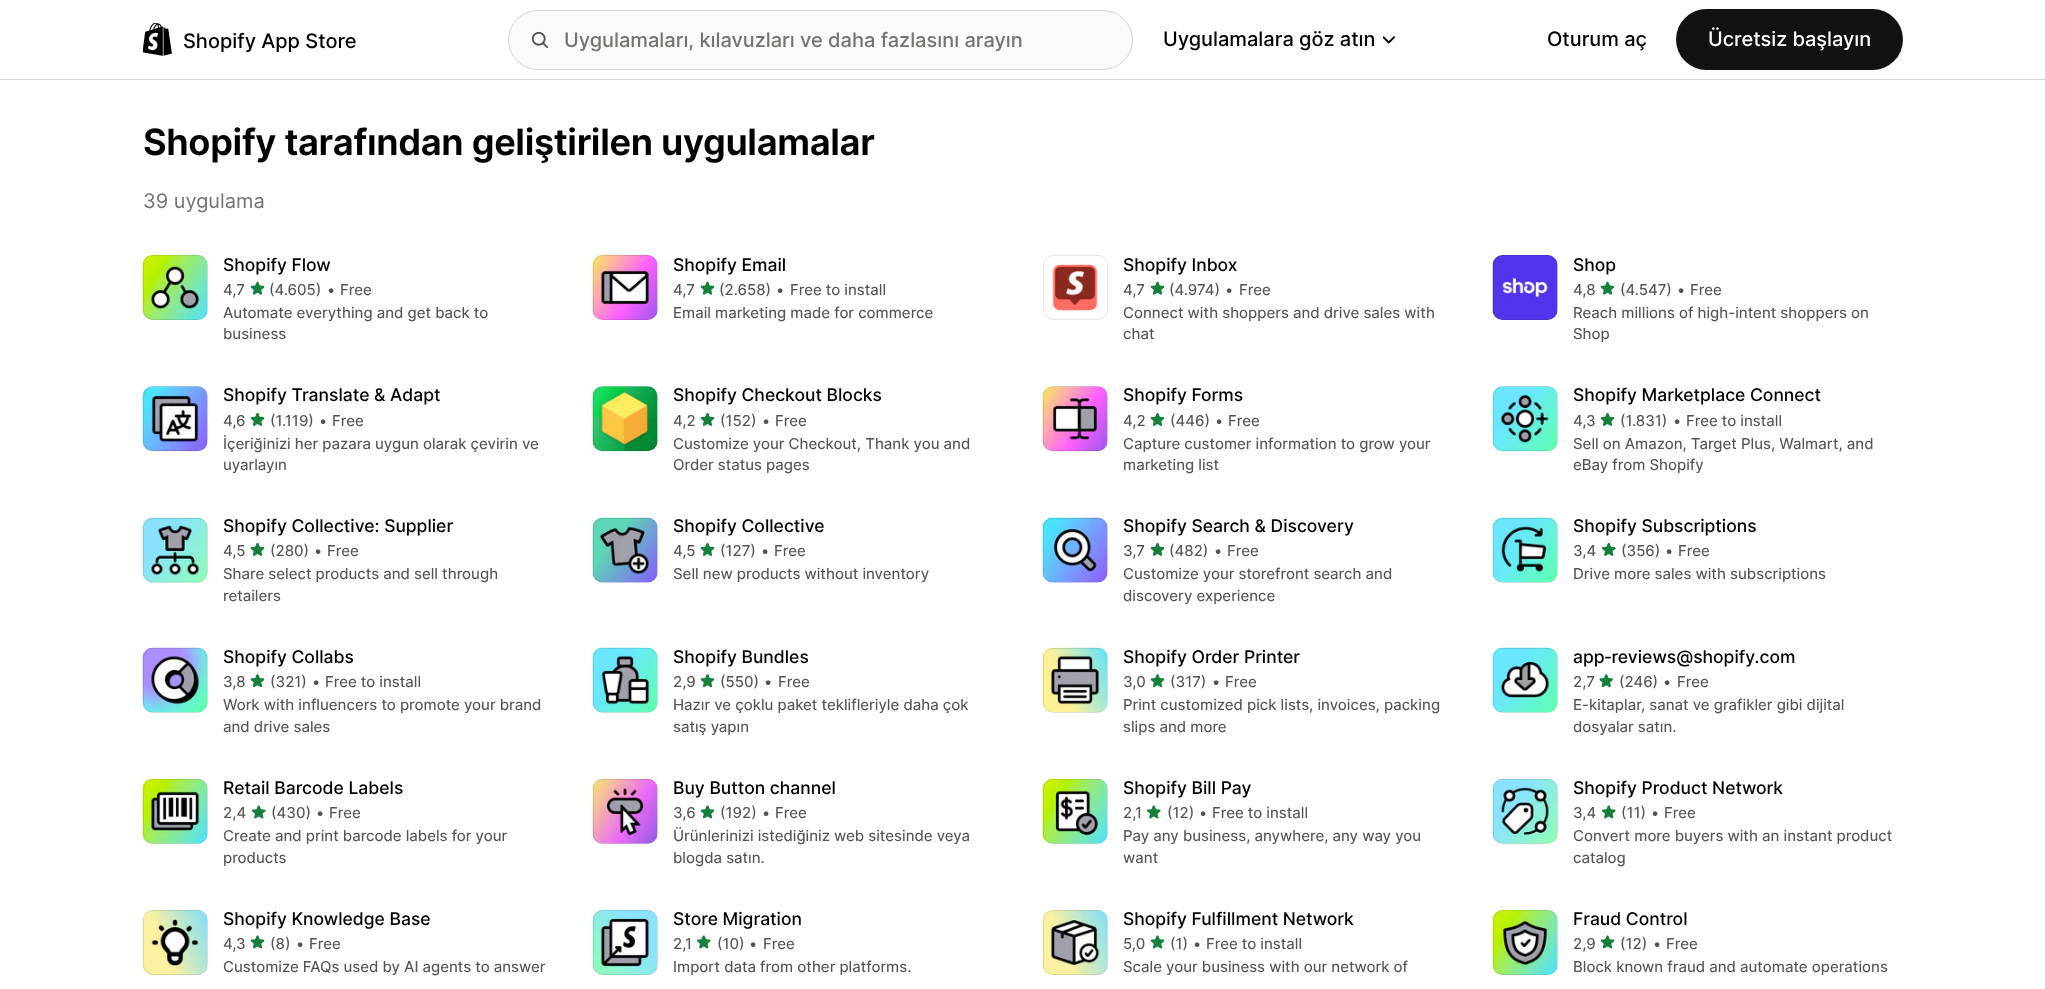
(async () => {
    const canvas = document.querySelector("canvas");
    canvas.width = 2045;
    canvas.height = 989;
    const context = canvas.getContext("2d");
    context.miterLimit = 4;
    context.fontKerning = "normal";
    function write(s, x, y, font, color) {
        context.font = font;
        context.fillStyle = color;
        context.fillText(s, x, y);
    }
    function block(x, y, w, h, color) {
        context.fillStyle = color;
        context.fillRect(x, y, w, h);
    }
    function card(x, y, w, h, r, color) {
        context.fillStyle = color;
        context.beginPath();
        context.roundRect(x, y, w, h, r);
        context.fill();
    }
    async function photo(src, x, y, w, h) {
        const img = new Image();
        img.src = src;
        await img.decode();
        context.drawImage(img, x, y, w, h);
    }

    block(0, 0, 2045, 989, "rgb(255, 255, 255)");
    block(0, 79, 2045, 1, "rgb(214, 211, 209)");
    await photo("media/1.png", 143, 23, 29, 33);
    write("Shopify App Store", 183, 48, "500 20px Inter", "rgb(0, 0, 0)");
    context.fillStyle = "rgb(250, 250, 249)";
    context.beginPath();
    context.roundRect(508.5, 10.5, 624, 59, 29.5);
    context.fill();
    context.strokeStyle = "rgb(214, 211, 209)";
    context.stroke();
    await photo("media/2.png", 531, 31, 18, 18);
    write("Uygulamaları, kılavuzları ve daha fazlasını arayın", 564, 47, "500 20px Inter", "rgb(120, 114, 109)");
    write("Uygulamalara göz atın", 1163, 46, "500 20px Inter", "rgb(0, 0, 0)");
    await photo("media/3.png", 1383, 36, 12, 8);
    write("Oturum aç", 1547, 46, "500 20px Inter", "rgb(0, 0, 0)");
    card(1676, 9, 227, 61, 30.5, "rgb(19, 17, 17)");
    write("Ücretsiz başlayın", 1708, 46, "500 20px Inter", "rgb(255, 255, 255)");
    context.letterSpacing = "-0.35px";
    write("Shopify tarafından geliştirilen uygulamalar", 143, 155, "600 36.25px Inter", "rgb(0, 0, 0)");
    context.letterSpacing = "0px";
    write("39 uygulama", 143, 208, "20px Inter", "rgb(120, 114, 109)");
    await photo("media/4.png", 142, 255, 66, 65);
    context.beginPath();
    context.roundRect(143.5, 255.5, 64, 64, 9.5);
    context.strokeStyle = "rgba(0, 0, 0, 0.1)";
    context.stroke();
    write("Shopify Flow", 223, 271, "500 17.5px Inter", "rgb(0, 0, 0)");
    write("4,7", 223, 295, "15px 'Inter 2'", "rgb(86, 82, 78)");
    await photo("media/5.png", 250, 281, 15, 14);
    write("(4.605)", 269, 295, "15px 'Inter 2'", "rgb(86, 82, 78)");
    write("•", 327, 295, "15px 'Inter 2'", "rgb(86, 82, 78)");
    write("Free", 340, 295, "15px 'Inter 2'", "rgb(86, 82, 78)");
    write("Automate everything and get back to", 223, 318, "15px 'Inter 2'", "rgb(86, 82, 78)");
    write("business", 223, 339, "15px 'Inter 2'", "rgb(86, 82, 78)");
    await photo("media/6.png", 592, 255, 66, 65);
    context.beginPath();
    context.roundRect(593.5, 255.5, 64, 64, 9.5);
    context.stroke();
    write("Shopify Email", 673, 271, "500 17.5px Inter", "rgb(0, 0, 0)");
    write("4,7", 673, 295, "15px 'Inter 2'", "rgb(86, 82, 78)");
    await photo("media/5.png", 700, 281, 15, 14);
    write("(2.658)", 719, 295, "15px 'Inter 2'", "rgb(86, 82, 78)");
    write("•", 776, 295, "15px 'Inter 2'", "rgb(86, 82, 78)");
    write("Free to install", 790, 295, "15px 'Inter 2'", "rgb(86, 82, 78)");
    write("Email marketing made for commerce", 673, 318, "15px 'Inter 2'", "rgb(86, 82, 78)");
    await photo("media/7.png", 1050, 262, 50, 51);
    context.beginPath();
    context.roundRect(1043.5, 255.5, 64, 64, 9.5);
    context.strokeStyle = "rgb(230, 230, 230)";
    context.stroke();
    write("Shopify Inbox", 1123, 271, "500 17.5px Inter", "rgb(0, 0, 0)");
    write("4,7", 1123, 295, "15px 'Inter 2'", "rgb(86, 82, 78)");
    await photo("media/5.png", 1150, 281, 15, 14);
    write("(4.974)", 1169, 295, "15px 'Inter 2'", "rgb(86, 82, 78)");
    write("•", 1225, 295, "15px 'Inter 2'", "rgb(86, 82, 78)");
    write("Free", 1239, 295, "15px 'Inter 2'", "rgb(86, 82, 78)");
    write("Connect with shoppers and drive sales with", 1123, 318, "15px 'Inter 2'", "rgb(86, 82, 78)");
    write("chat", 1123, 339, "15px 'Inter 2'", "rgb(86, 82, 78)");
    await photo("media/8.png", 1492, 255, 66, 65);
    context.beginPath();
    context.roundRect(1493.5, 255.5, 64, 64, 9.5);
    context.strokeStyle = "rgba(0, 0, 0, 0.1)";
    context.stroke();
    write("Shop", 1573, 271, "500 17.5px Inter", "rgb(0, 0, 0)");
    write("4,8", 1573, 295, "15px 'Inter 2'", "rgb(86, 82, 78)");
    await photo("media/5.png", 1600, 281, 15, 14);
    write("(4.547)", 1620, 295, "15px 'Inter 2'", "rgb(86, 82, 78)");
    write("•", 1677, 295, "15px 'Inter 2'", "rgb(86, 82, 78)");
    write("Free", 1690, 295, "15px 'Inter 2'", "rgb(86, 82, 78)");
    write("Reach millions of high-intent shoppers on", 1573, 318, "15px 'Inter 2'", "rgb(86, 82, 78)");
    write("Shop", 1573, 339, "15px 'Inter 2'", "rgb(86, 82, 78)");
    await photo("media/9.png", 142, 386, 66, 66);
    context.beginPath();
    context.roundRect(143.5, 386.5, 64, 64, 9.5);
    context.stroke();
    write("Shopify Translate & Adapt", 223, 401, "500 17.5px Inter", "rgb(0, 0, 0)");
    write("4,6", 223, 426, "15px 'Inter 2'", "rgb(86, 82, 78)");
    await photo("media/10.png", 250, 413, 15, 13);
    write("(1.119)", 270, 426, "15px 'Inter 2'", "rgb(86, 82, 78)");
    write("•", 319, 426, "15px 'Inter 2'", "rgb(86, 82, 78)");
    write("Free", 332, 426, "15px 'Inter 2'", "rgb(86, 82, 78)");
    write("İçeriğinizi her pazara uygun olarak çevirin ve", 223, 449, "15px 'Inter 2'", "rgb(86, 82, 78)");
    write("uyarlayın", 223, 470, "15px 'Inter 2'", "rgb(86, 82, 78)");
    await photo("media/11.png", 592, 386, 66, 66);
    context.beginPath();
    context.roundRect(593.5, 386.5, 64, 64, 9.5);
    context.stroke();
    write("Shopify Checkout Blocks", 673, 401, "500 17.5px Inter", "rgb(0, 0, 0)");
    write("4,2", 673, 426, "15px 'Inter 2'", "rgb(86, 82, 78)");
    await photo("media/10.png", 700, 413, 15, 13);
    write("(152)", 720, 426, "15px 'Inter 2'", "rgb(86, 82, 78)");
    write("•", 762, 426, "15px 'Inter 2'", "rgb(86, 82, 78)");
    write("Free", 775, 426, "15px 'Inter 2'", "rgb(86, 82, 78)");
    write("Customize your Checkout, Thank you and", 673, 449, "15px 'Inter 2'", "rgb(86, 82, 78)");
    write("Order status pages", 673, 470, "15px 'Inter 2'", "rgb(86, 82, 78)");
    await photo("media/12.png", 1042, 386, 66, 66);
    context.beginPath();
    context.roundRect(1043.5, 386.5, 64, 64, 9.5);
    context.stroke();
    write("Shopify Forms", 1123, 401, "500 17.5px Inter", "rgb(0, 0, 0)");
    write("4,2", 1123, 426, "15px 'Inter 2'", "rgb(86, 82, 78)");
    await photo("media/10.png", 1150, 413, 15, 13);
    write("(446)", 1170, 426, "15px 'Inter 2'", "rgb(86, 82, 78)");
    write("•", 1215, 426, "15px 'Inter 2'", "rgb(86, 82, 78)");
    write("Free", 1228, 426, "15px 'Inter 2'", "rgb(86, 82, 78)");
    write("Capture customer information to grow your", 1123, 449, "15px 'Inter 2'", "rgb(86, 82, 78)");
    write("marketing list", 1123, 470, "15px 'Inter 2'", "rgb(86, 82, 78)");
    await photo("media/13.png", 1492, 386, 66, 66);
    context.beginPath();
    context.roundRect(1493.5, 386.5, 64, 64, 9.5);
    context.stroke();
    write("Shopify Marketplace Connect", 1573, 401, "500 17.5px Inter", "rgb(0, 0, 0)");
    write("4,3", 1573, 426, "15px 'Inter 2'", "rgb(86, 82, 78)");
    await photo("media/10.png", 1600, 413, 15, 13);
    write("(1.831)", 1620, 426, "15px 'Inter 2'", "rgb(86, 82, 78)");
    write("•", 1673, 426, "15px 'Inter 2'", "rgb(86, 82, 78)");
    write("Free to install", 1686, 426, "15px 'Inter 2'", "rgb(86, 82, 78)");
    write("Sell on Amazon, Target Plus, Walmart, and", 1573, 449, "15px 'Inter 2'", "rgb(86, 82, 78)");
    write("eBay from Shopify", 1573, 470, "15px 'Inter 2'", "rgb(86, 82, 78)");
    await photo("media/14.png", 142, 517, 66, 66);
    context.beginPath();
    context.roundRect(143.5, 518.5, 64, 64, 9.5);
    context.stroke();
    write("Shopify Collective: Supplier", 223, 532, "500 17.5px Inter", "rgb(0, 0, 0)");
    write("4,5", 223, 556, "15px 'Inter 2'", "rgb(86, 82, 78)");
    await photo("media/10.png", 250, 543, 15, 13);
    write("(280)", 270, 556, "15px 'Inter 2'", "rgb(86, 82, 78)");
    write("•", 314, 556, "15px 'Inter 2'", "rgb(86, 82, 78)");
    write("Free", 327, 556, "15px 'Inter 2'", "rgb(86, 82, 78)");
    write("Share select products and sell through", 223, 579, "15px 'Inter 2'", "rgb(86, 82, 78)");
    write("retailers", 223, 601, "15px 'Inter 2'", "rgb(86, 82, 78)");
    await photo("media/15.png", 592, 517, 66, 66);
    context.beginPath();
    context.roundRect(593.5, 518.5, 64, 64, 9.5);
    context.stroke();
    write("Shopify Collective", 673, 532, "500 17.5px Inter", "rgb(0, 0, 0)");
    write("4,5", 673, 556, "15px 'Inter 2'", "rgb(86, 82, 78)");
    await photo("media/10.png", 700, 543, 15, 13);
    write("(127)", 720, 556, "15px 'Inter 2'", "rgb(86, 82, 78)");
    write("•", 761, 556, "15px 'Inter 2'", "rgb(86, 82, 78)");
    write("Free", 774, 556, "15px 'Inter 2'", "rgb(86, 82, 78)");
    write("Sell new products without inventory", 673, 579, "15px 'Inter 2'", "rgb(86, 82, 78)");
    await photo("media/16.png", 1042, 517, 66, 66);
    context.beginPath();
    context.roundRect(1043.5, 518.5, 64, 64, 9.5);
    context.stroke();
    write("Shopify Search & Discovery", 1123, 532, "500 17.5px Inter", "rgb(0, 0, 0)");
    write("3,7", 1123, 556, "15px 'Inter 2'", "rgb(86, 82, 78)");
    await photo("media/10.png", 1150, 543, 15, 13);
    write("(482)", 1169, 556, "15px 'Inter 2'", "rgb(86, 82, 78)");
    write("•", 1214, 556, "15px 'Inter 2'", "rgb(86, 82, 78)");
    write("Free", 1227, 556, "15px 'Inter 2'", "rgb(86, 82, 78)");
    write("Customize your storefront search and", 1123, 579, "15px 'Inter 2'", "rgb(86, 82, 78)");
    write("discovery experience", 1123, 601, "15px 'Inter 2'", "rgb(86, 82, 78)");
    await photo("media/17.png", 1492, 517, 66, 66);
    context.beginPath();
    context.roundRect(1493.5, 518.5, 64, 64, 9.5);
    context.stroke();
    write("Shopify Subscriptions", 1573, 532, "500 17.5px Inter", "rgb(0, 0, 0)");
    write("3,4", 1573, 556, "15px 'Inter 2'", "rgb(86, 82, 78)");
    await photo("media/18.png", 1602, 543, 14, 13);
    write("(356)", 1621, 556, "15px 'Inter 2'", "rgb(86, 82, 78)");
    write("•", 1665, 556, "15px 'Inter 2'", "rgb(86, 82, 78)");
    write("Free", 1678, 556, "15px 'Inter 2'", "rgb(86, 82, 78)");
    write("Drive more sales with subscriptions", 1573, 579, "15px 'Inter 2'", "rgb(86, 82, 78)");
    await photo("media/19.png", 142, 647, 66, 66);
    context.beginPath();
    context.roundRect(143.5, 648.5, 64, 64, 9.5);
    context.stroke();
    write("Shopify Collabs", 223, 663, "500 17.5px Inter", "rgb(0, 0, 0)");
    write("3,8", 223, 687, "15px 'Inter 2'", "rgb(86, 82, 78)");
    await photo("media/20.png", 250, 674, 15, 14);
    write("(321)", 270, 687, "15px 'Inter 2'", "rgb(86, 82, 78)");
    write("•", 312, 687, "15px 'Inter 2'", "rgb(86, 82, 78)");
    write("Free to install", 325, 687, "15px 'Inter 2'", "rgb(86, 82, 78)");
    write("Work with influencers to promote your brand", 223, 710, "15px 'Inter 2'", "rgb(86, 82, 78)");
    write("and drive sales", 223, 732, "15px 'Inter 2'", "rgb(86, 82, 78)");
    await photo("media/21.png", 592, 647, 66, 66);
    context.beginPath();
    context.roundRect(593.5, 648.5, 64, 64, 9.5);
    context.stroke();
    write("Shopify Bundles", 673, 663, "500 17.5px Inter", "rgb(0, 0, 0)");
    write("2,9", 673, 687, "15px 'Inter 2'", "rgb(86, 82, 78)");
    await photo("media/20.png", 700, 674, 15, 14);
    write("(550)", 720, 687, "15px 'Inter 2'", "rgb(86, 82, 78)");
    write("•", 764, 687, "15px 'Inter 2'", "rgb(86, 82, 78)");
    write("Free", 778, 687, "15px 'Inter 2'", "rgb(86, 82, 78)");
    write("Hazır ve çoklu paket teklifleriyle daha çok", 673, 710, "15px 'Inter 2'", "rgb(86, 82, 78)");
    write("satış yapın", 673, 732, "15px 'Inter 2'", "rgb(86, 82, 78)");
    await photo("media/22.png", 1042, 647, 66, 66);
    context.beginPath();
    context.roundRect(1043.5, 648.5, 64, 64, 9.5);
    context.stroke();
    write("Shopify Order Printer", 1123, 663, "500 17.5px Inter", "rgb(0, 0, 0)");
    write("3,0", 1123, 687, "15px 'Inter 2'", "rgb(86, 82, 78)");
    await photo("media/20.png", 1150, 674, 15, 14);
    write("(317)", 1170, 687, "15px 'Inter 2'", "rgb(86, 82, 78)");
    write("•", 1212, 687, "15px 'Inter 2'", "rgb(86, 82, 78)");
    write("Free", 1225, 687, "15px 'Inter 2'", "rgb(86, 82, 78)");
    write("Print customized pick lists, invoices, packing", 1123, 710, "15px 'Inter 2'", "rgb(86, 82, 78)");
    write("slips and more", 1123, 732, "15px 'Inter 2'", "rgb(86, 82, 78)");
    await photo("media/23.png", 1492, 647, 66, 66);
    context.beginPath();
    context.roundRect(1493.5, 648.5, 64, 64, 9.5);
    context.stroke();
    write("app‑reviews@shopify.com", 1573, 663, "500 17.5px Inter", "rgb(0, 0, 0)");
    write("2,7", 1573, 687, "15px 'Inter 2'", "rgb(86, 82, 78)");
    await photo("media/24.png", 1599, 674, 14, 14);
    write("(246)", 1619, 687, "15px 'Inter 2'", "rgb(86, 82, 78)");
    write("•", 1663, 687, "15px 'Inter 2'", "rgb(86, 82, 78)");
    write("Free", 1677, 687, "15px 'Inter 2'", "rgb(86, 82, 78)");
    write("E-kitaplar, sanat ve grafikler gibi dijital", 1573, 710, "15px 'Inter 2'", "rgb(86, 82, 78)");
    write("dosyalar satın.", 1573, 732, "15px 'Inter 2'", "rgb(86, 82, 78)");
    await photo("media/25.png", 142, 778, 66, 66);
    context.beginPath();
    context.roundRect(143.5, 779.5, 64, 64, 9.5);
    context.stroke();
    write("Retail Barcode Labels", 223, 794, "500 17.5px Inter", "rgb(0, 0, 0)");
    write("2,4", 223, 818, "15px 'Inter 2'", "rgb(86, 82, 78)");
    await photo("media/26.png", 252, 805, 14, 14);
    write("(430)", 271, 818, "15px 'Inter 2'", "rgb(86, 82, 78)");
    write("•", 316, 818, "15px 'Inter 2'", "rgb(86, 82, 78)");
    write("Free", 329, 818, "15px 'Inter 2'", "rgb(86, 82, 78)");
    write("Create and print barcode labels for your", 223, 841, "15px 'Inter 2'", "rgb(86, 82, 78)");
    write("products", 223, 863, "15px 'Inter 2'", "rgb(86, 82, 78)");
    await photo("media/27.png", 592, 778, 66, 66);
    context.beginPath();
    context.roundRect(593.5, 779.5, 64, 64, 9.5);
    context.stroke();
    write("Buy Button channel", 673, 794, "500 17.5px Inter", "rgb(0, 0, 0)");
    write("3,6", 673, 818, "15px 'Inter 2'", "rgb(86, 82, 78)");
    await photo("media/28.png", 700, 805, 15, 14);
    write("(192)", 720, 818, "15px 'Inter 2'", "rgb(86, 82, 78)");
    write("•", 762, 818, "15px 'Inter 2'", "rgb(86, 82, 78)");
    write("Free", 775, 818, "15px 'Inter 2'", "rgb(86, 82, 78)");
    write("Ürünlerinizi istediğiniz web sitesinde veya", 673, 841, "15px 'Inter 2'", "rgb(86, 82, 78)");
    write("blogda satın.", 673, 863, "15px 'Inter 2'", "rgb(86, 82, 78)");
    await photo("media/29.png", 1042, 778, 66, 66);
    context.beginPath();
    context.roundRect(1043.5, 779.5, 64, 64, 9.5);
    context.stroke();
    write("Shopify Bill Pay", 1123, 794, "500 17.5px Inter", "rgb(0, 0, 0)");
    write("2,1", 1123, 818, "15px 'Inter 2'", "rgb(86, 82, 78)");
    await photo("media/26.png", 1147, 805, 14, 14);
    write("(12)", 1167, 818, "15px 'Inter 2'", "rgb(86, 82, 78)");
    write("•", 1199, 818, "15px 'Inter 2'", "rgb(86, 82, 78)");
    write("Free to install", 1212, 818, "15px 'Inter 2'", "rgb(86, 82, 78)");
    write("Pay any business, anywhere, any way you", 1123, 841, "15px 'Inter 2'", "rgb(86, 82, 78)");
    write("want", 1123, 863, "15px 'Inter 2'", "rgb(86, 82, 78)");
    await photo("media/30.png", 1492, 778, 66, 66);
    context.beginPath();
    context.roundRect(1493.5, 779.5, 64, 64, 9.5);
    context.stroke();
    write("Shopify Product Network", 1573, 794, "500 17.5px Inter", "rgb(0, 0, 0)");
    write("3,4", 1573, 818, "15px 'Inter 2'", "rgb(86, 82, 78)");
    await photo("media/26.png", 1602, 805, 14, 14);
    write("(11)", 1621, 818, "15px 'Inter 2'", "rgb(86, 82, 78)");
    write("•", 1651, 818, "15px 'Inter 2'", "rgb(86, 82, 78)");
    write("Free", 1664, 818, "15px 'Inter 2'", "rgb(86, 82, 78)");
    write("Convert more buyers with an instant product", 1573, 841, "15px 'Inter 2'", "rgb(86, 82, 78)");
    write("catalog", 1573, 863, "15px 'Inter 2'", "rgb(86, 82, 78)");
    await photo("media/31.png", 142, 910, 66, 65);
    context.beginPath();
    context.roundRect(143.5, 910.5, 64, 64, 9.5);
    context.stroke();
    write("Shopify Knowledge Base", 223, 925, "500 17.5px Inter", "rgb(0, 0, 0)");
    write("4,3", 223, 949, "15px 'Inter 2'", "rgb(86, 82, 78)");
    await photo("media/28.png", 250, 935, 15, 14);
    write("(8)", 270, 949, "15px 'Inter 2'", "rgb(86, 82, 78)");
    write("•", 296, 949, "15px 'Inter 2'", "rgb(86, 82, 78)");
    write("Free", 309, 949, "15px 'Inter 2'", "rgb(86, 82, 78)");
    write("Customize FAQs used by AI agents to answer", 223, 972, "15px 'Inter 2'", "rgb(86, 82, 78)");
    await photo("media/32.png", 592, 910, 66, 65);
    context.beginPath();
    context.roundRect(593.5, 910.5, 64, 64, 9.5);
    context.stroke();
    write("Store Migration", 673, 925, "500 17.5px Inter", "rgb(0, 0, 0)");
    write("2,1", 673, 949, "15px 'Inter 2'", "rgb(86, 82, 78)");
    await photo("media/26.png", 697, 935, 14, 14);
    write("(10)", 717, 949, "15px 'Inter 2'", "rgb(86, 82, 78)");
    write("•", 749, 949, "15px 'Inter 2'", "rgb(86, 82, 78)");
    write("Free", 763, 949, "15px 'Inter 2'", "rgb(86, 82, 78)");
    write("Import data from other platforms.", 673, 972, "15px 'Inter 2'", "rgb(86, 82, 78)");
    await photo("media/33.png", 1042, 910, 66, 65);
    context.beginPath();
    context.roundRect(1043.5, 910.5, 64, 64, 9.5);
    context.stroke();
    write("Shopify Fulfillment Network", 1123, 925, "500 17.5px Inter", "rgb(0, 0, 0)");
    write("5,0", 1123, 949, "15px 'Inter 2'", "rgb(86, 82, 78)");
    await photo("media/28.png", 1150, 935, 15, 14);
    write("(1)", 1170, 949, "15px 'Inter 2'", "rgb(86, 82, 78)");
    write("•", 1193, 949, "15px 'Inter 2'", "rgb(86, 82, 78)");
    write("Free to install", 1206, 949, "15px 'Inter 2'", "rgb(86, 82, 78)");
    write("Scale your business with our network of", 1123, 972, "15px 'Inter 2'", "rgb(86, 82, 78)");
    await photo("media/34.png", 1492, 910, 66, 65);
    context.beginPath();
    context.roundRect(1493.5, 910.5, 64, 64, 9.5);
    context.stroke();
    write("Fraud Control", 1573, 925, "500 17.5px Inter", "rgb(0, 0, 0)");
    write("2,9", 1573, 949, "15px 'Inter 2'", "rgb(86, 82, 78)");
    await photo("media/28.png", 1600, 935, 15, 14);
    write("(12)", 1620, 949, "15px 'Inter 2'", "rgb(86, 82, 78)");
    write("•", 1653, 949, "15px 'Inter 2'", "rgb(86, 82, 78)");
    write("Free", 1666, 949, "15px 'Inter 2'", "rgb(86, 82, 78)");
    write("Block known fraud and automate operations", 1573, 972, "15px 'Inter 2'", "rgb(86, 82, 78)");
})();
